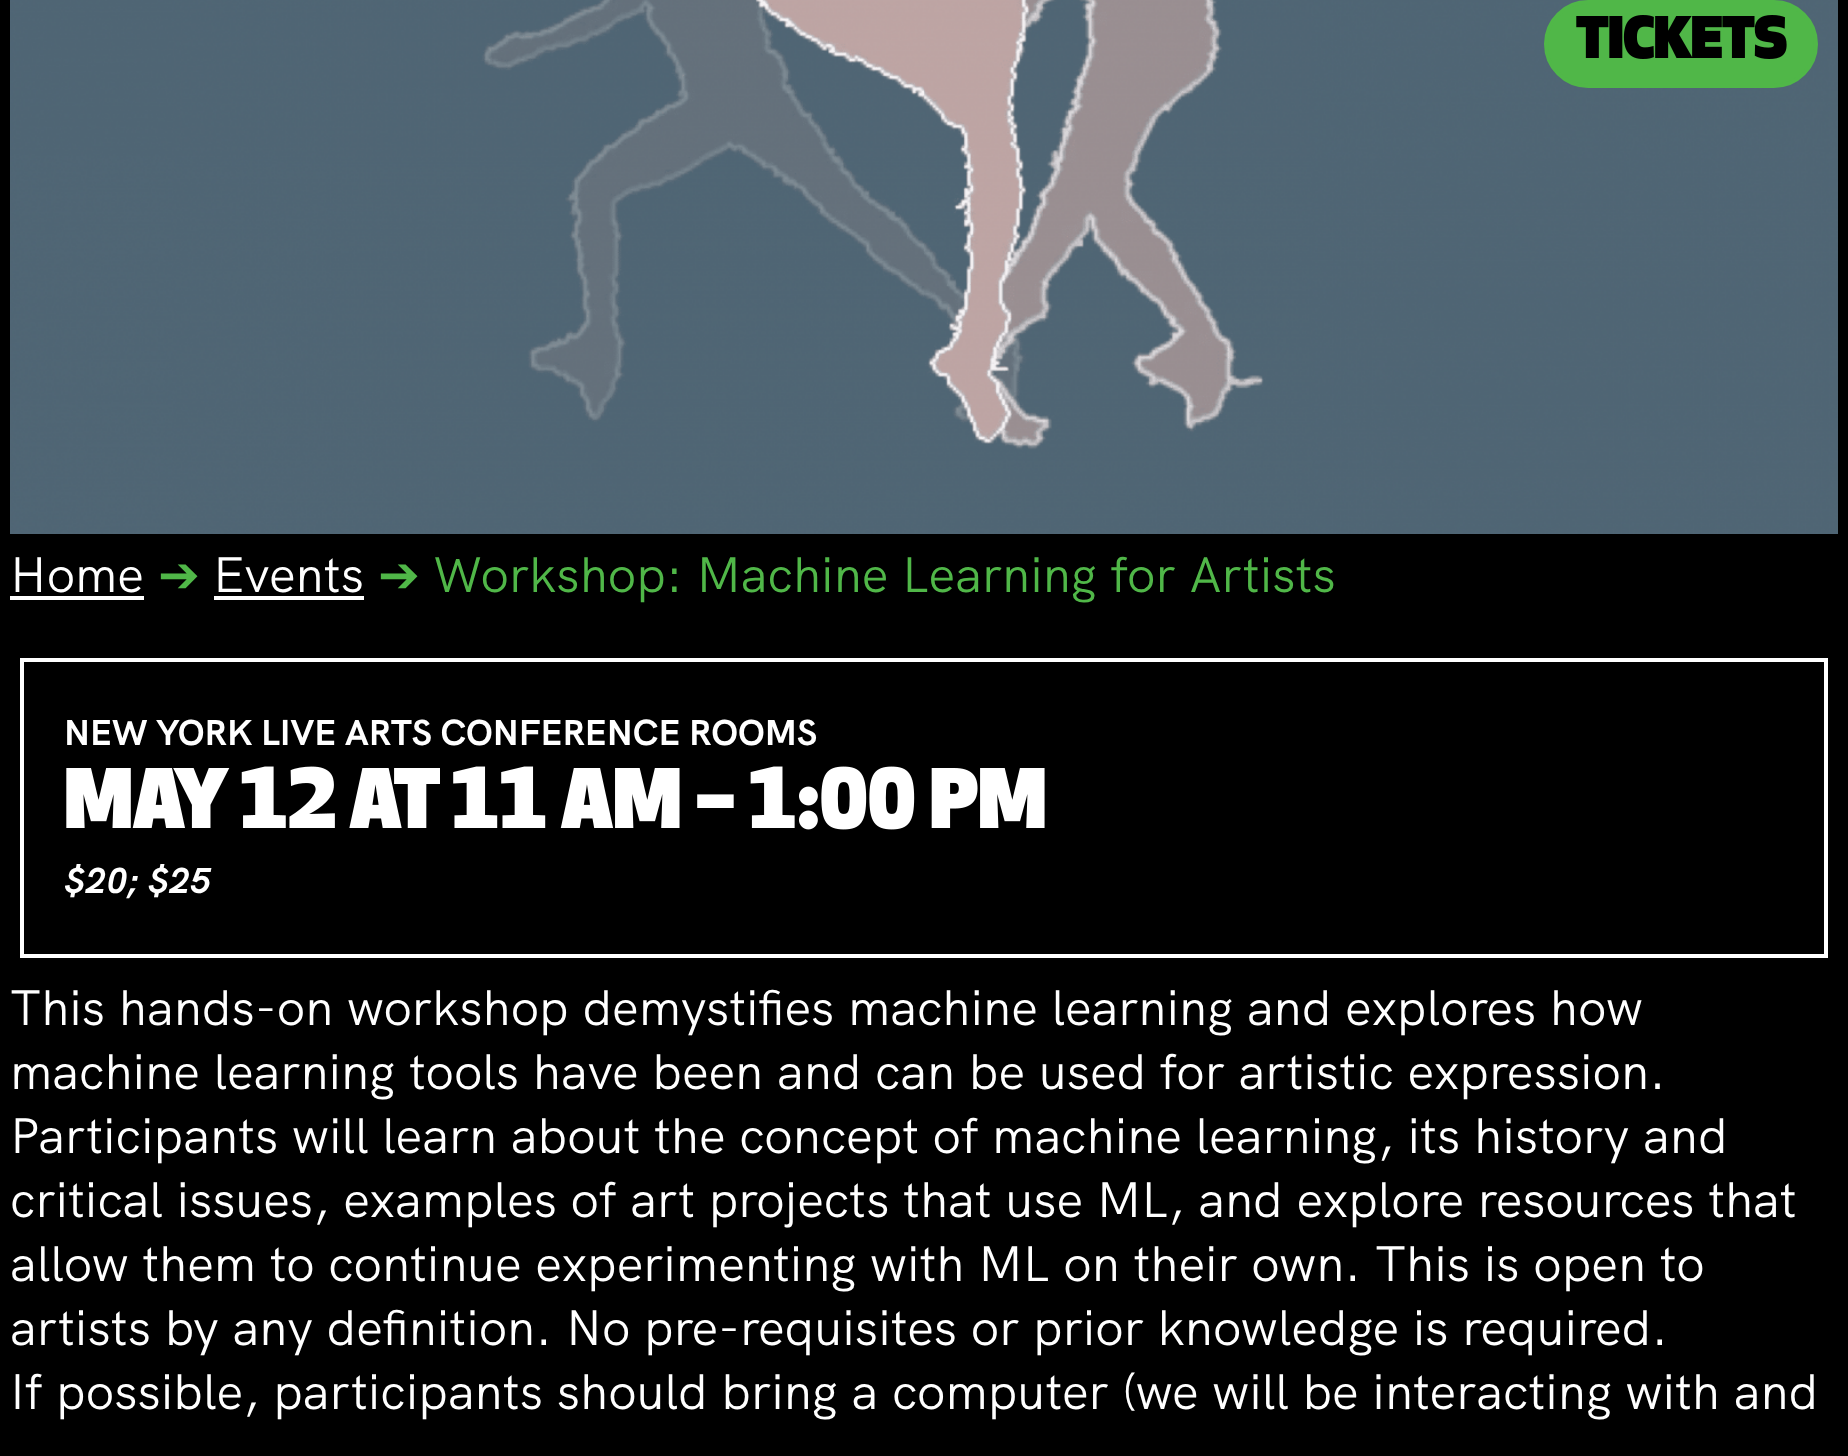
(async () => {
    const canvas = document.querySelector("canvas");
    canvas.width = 1848;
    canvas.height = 1456;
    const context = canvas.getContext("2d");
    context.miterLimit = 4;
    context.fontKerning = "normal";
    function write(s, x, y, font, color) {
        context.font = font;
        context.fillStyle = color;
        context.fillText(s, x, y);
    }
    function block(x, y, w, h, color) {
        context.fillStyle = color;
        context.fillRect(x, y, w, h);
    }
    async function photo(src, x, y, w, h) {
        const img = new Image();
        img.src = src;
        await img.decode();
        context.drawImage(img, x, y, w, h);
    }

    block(0, 0, 1848, 1456, "rgb(0, 0, 0)");
    await photo("media/2.png", 10, 0, 1828, 534);
    context.fillStyle = "rgb(80, 183, 72)";
    context.beginPath();
    context.roundRect(1546, 2, 270, 84, 42);
    context.fill();
    context.strokeStyle = "rgb(80, 183, 72)";
    context.lineWidth = 4;
    context.stroke();
    await photo("media/1.png", 1576, 15, 211, 44);
    write("Home", 10, 592, "50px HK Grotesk", "rgb(255, 255, 255)");
    block(10, 596, 134, 4, "rgb(255, 255, 255)");
    write("➔", 158, 592, "50px DejaVu Sans", "rgb(80, 183, 72)");
    write("Events", 213, 592, "50px HK Grotesk", "rgb(255, 255, 255)");
    block(214, 596, 150, 4, "rgb(255, 255, 255)");
    write("➔", 378, 592, "50px DejaVu Sans", "rgb(80, 183, 72)");
    write("Workshop: Machine Learning for Artists", 433, 592, "50px HK Grotesk", "rgb(80, 183, 72)");
    context.strokeStyle = "rgb(255, 255, 255)";
    context.strokeRect(22, 660, 1804, 296);
    write("NEW YORK LIVE ARTS CONFERENCE ROOMS", 64, 745, "bold 36px HK Grotesk", "rgb(255, 255, 255)");
    await photo("media/3.png", 66, 766, 979, 64);
    write("$20; $25", 64, 893, "italic bold 36px HK Grotesk", "rgb(255, 255, 255)");
    write("This hands-on workshop demystifies machine learning and explores how", 10, 1025, "50px HK Grotesk", "rgb(255, 255, 255)");
    write("machine learning tools have been and can be used for artistic expression.", 10, 1089, "50px HK Grotesk", "rgb(255, 255, 255)");
    write("Participants will learn about the concept of machine learning, its history and", 10, 1153, "50px HK Grotesk", "rgb(255, 255, 255)");
    write("critical issues, examples of art projects that use ML, and explore resources that", 10, 1217, "50px HK Grotesk", "rgb(255, 255, 255)");
    write("allow them to continue experimenting with ML on their own. This is open to", 10, 1281, "50px HK Grotesk", "rgb(255, 255, 255)");
    write("artists by any definition. No pre-requisites or prior knowledge is required.", 10, 1345, "50px HK Grotesk", "rgb(255, 255, 255)");
    write("If possible, participants should bring a computer (we will be interacting with and", 10, 1409, "50px HK Grotesk", "rgb(255, 255, 255)");
})();
